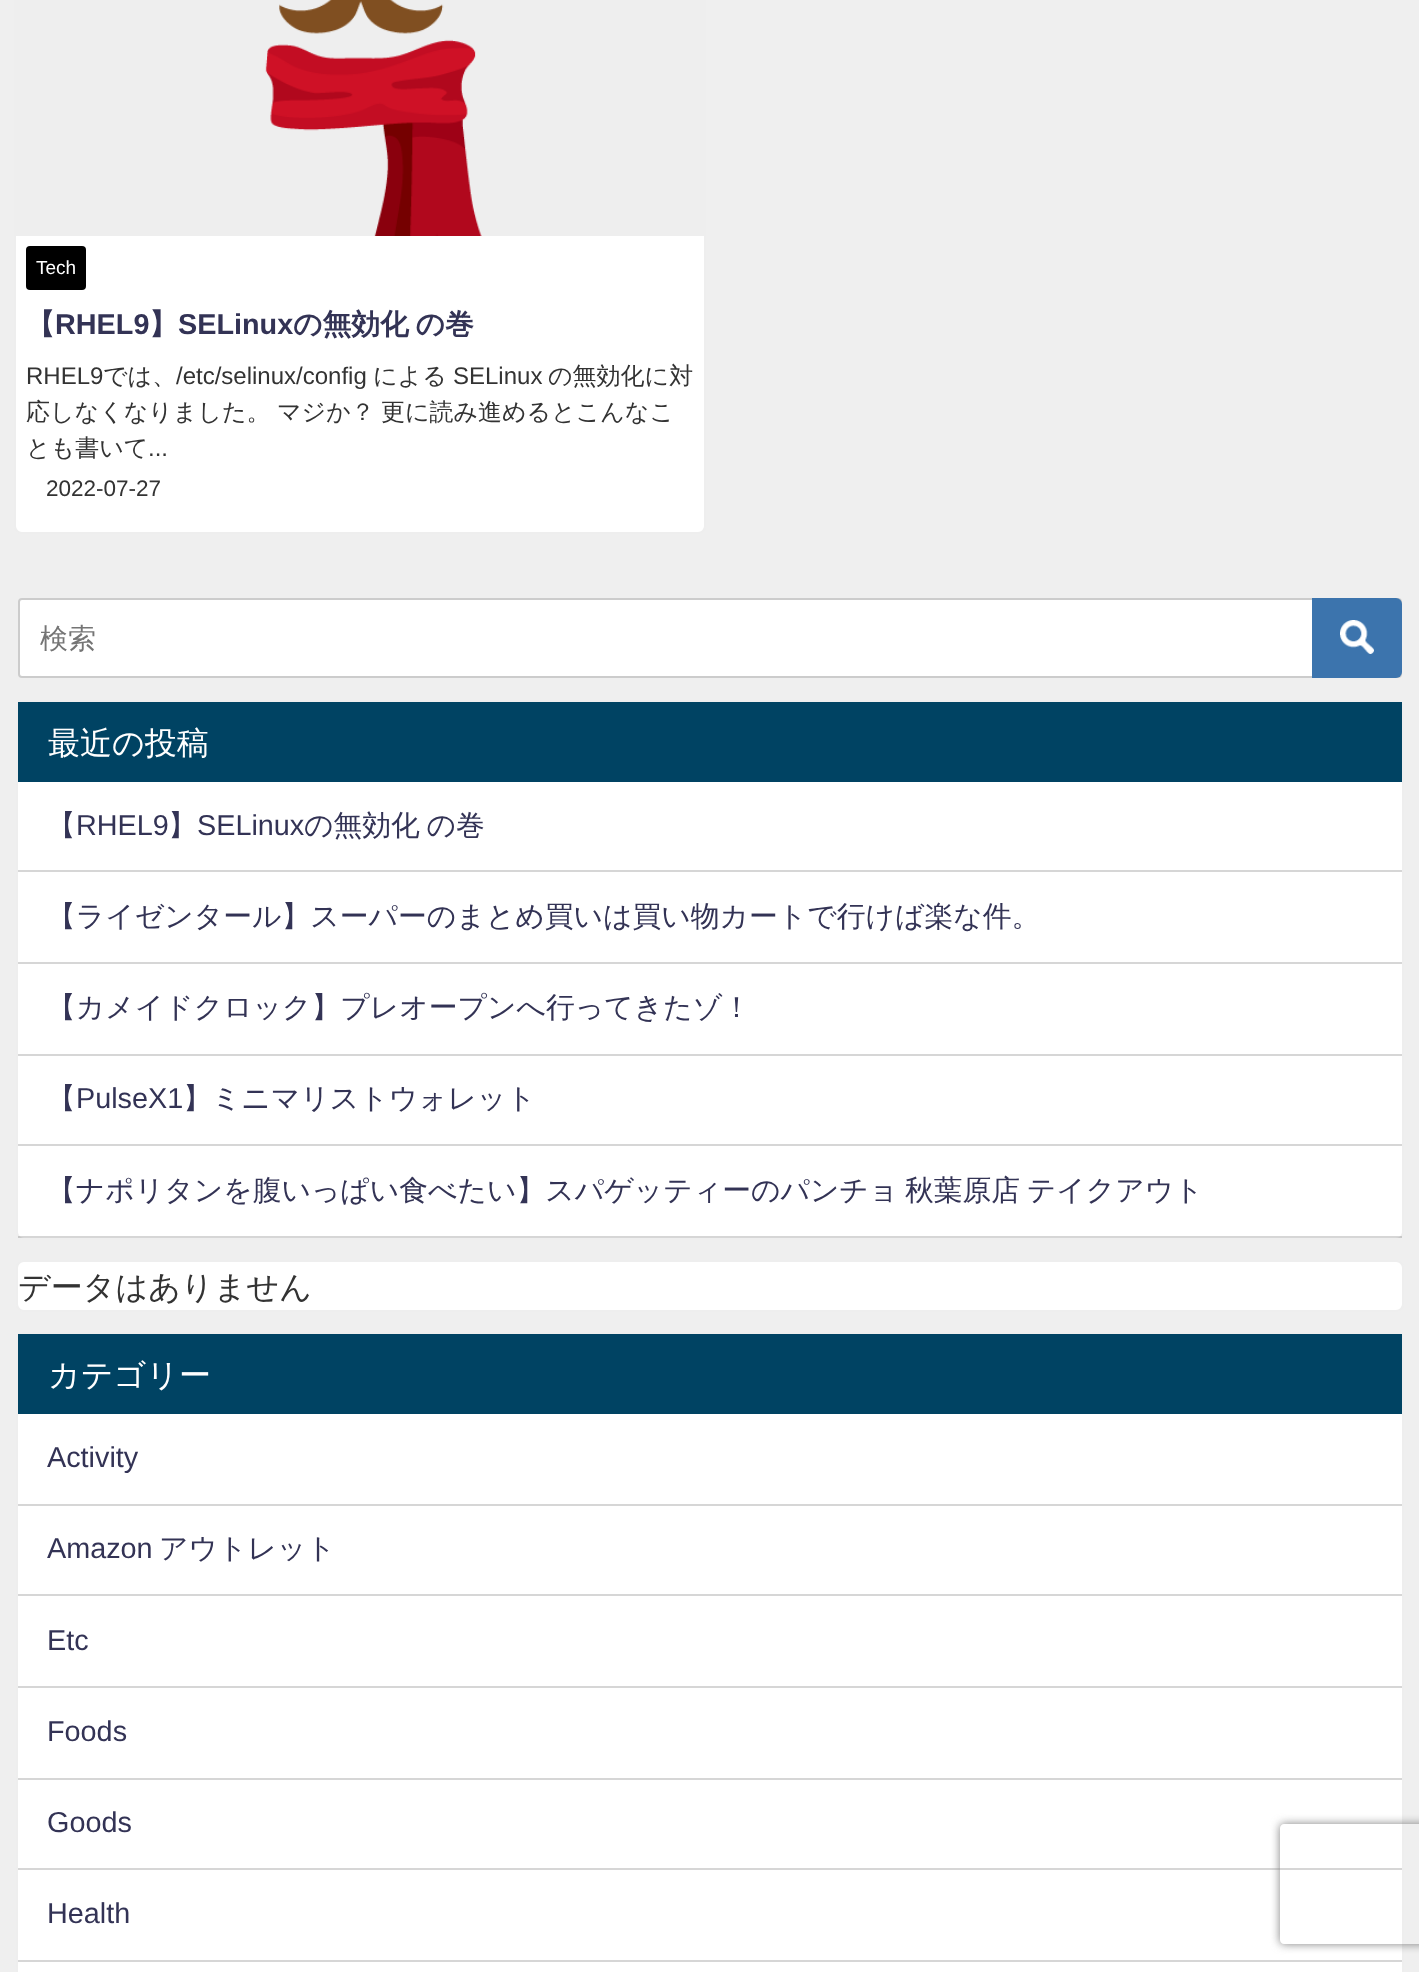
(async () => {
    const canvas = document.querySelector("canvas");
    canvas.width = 1419;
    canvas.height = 1972;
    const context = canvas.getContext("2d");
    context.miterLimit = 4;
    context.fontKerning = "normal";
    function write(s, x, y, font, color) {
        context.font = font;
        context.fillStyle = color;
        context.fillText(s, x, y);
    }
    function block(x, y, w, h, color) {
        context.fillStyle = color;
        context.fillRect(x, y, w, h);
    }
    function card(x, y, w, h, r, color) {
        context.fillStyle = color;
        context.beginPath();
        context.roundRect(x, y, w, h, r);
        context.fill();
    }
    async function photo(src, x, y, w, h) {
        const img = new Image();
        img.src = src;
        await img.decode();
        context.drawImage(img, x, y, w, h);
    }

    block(0, 0, 1419, 1972, "rgb(239, 239, 239)");
    context.fillStyle = "rgb(255, 255, 255)";
    context.beginPath();
    context.roundRect(15, -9, 690, 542, 7);
    context.fill();
    context.strokeStyle = "rgb(238, 238, 238)";
    context.lineWidth = 2;
    context.stroke();
    block(16, 0, 688, 236, "rgb(238, 238, 238)");
    await photo("media/1.png", 265, 0, 217, 236);
    card(26, 246, 60, 44, 4, "rgb(0, 0, 0)");
    write("Tech", 36, 274, "19px Liberation Sans", "rgb(255, 255, 255)");
    write("【", 26, 334, "bold 28.8px WenQuanYi Zen Hei", "rgb(51, 51, 85)");
    write("RHEL9", 55, 334, "bold 28.8px Liberation Sans", "rgb(51, 51, 85)");
    write("】", 149, 334, "bold 28.8px WenQuanYi Zen Hei", "rgb(51, 51, 85)");
    write("SELinux", 178, 334, "bold 28.8px Liberation Sans", "rgb(51, 51, 85)");
    context.wordSpacing = "-2px";
    write("の無効化 の巻", 293, 334, "bold 28.8px WenQuanYi Zen Hei", "rgb(51, 51, 85)");
    context.wordSpacing = "0px";
    write("RHEL9", 26, 384, "24px Liberation Sans", "rgb(51, 51, 51)");
    write("では、", 103, 384, "500 24px WenQuanYi Zen Hei", "rgb(51, 51, 51)");
    write("/etc/selinux/config", 176, 384, "24px Liberation Sans", "rgb(51, 51, 51)");
    write("による", 373, 384, "500 24px WenQuanYi Zen Hei", "rgb(51, 51, 51)");
    write("SELinux", 453, 384, "24px Liberation Sans", "rgb(51, 51, 51)");
    write("の無効化に対", 548, 384, "500 24px WenQuanYi Zen Hei", "rgb(51, 51, 51)");
    write("応しなくなりました。", 26, 420, "500 24px WenQuanYi Zen Hei", "rgb(51, 51, 51)");
    context.wordSpacing = "-1px";
    write("マジか？ 更に読み進めるとこんなこ", 277, 420, "500 24px WenQuanYi Zen Hei", "rgb(51, 51, 51)");
    context.wordSpacing = "0px";
    write("とも書いて", 26, 456, "500 24px WenQuanYi Zen Hei", "rgb(51, 51, 51)");
    write("...", 148, 456, "24px Liberation Sans", "rgb(51, 51, 51)");
    write("2022-07-27", 46, 496, "22.5px Liberation Sans", "rgb(51, 51, 51)");
    context.fillStyle = "rgb(255, 255, 255)";
    context.beginPath();
    context.roundRect(19, 599, 1382, 78, 3);
    context.fill();
    context.strokeStyle = "rgb(204, 204, 204)";
    context.stroke();
    write("検索", 40, 648, "500 28px WenQuanYi Zen Hei", "rgb(117, 117, 117)");
    context.fillStyle = "rgb(60, 116, 173)";
    context.beginPath();
    context.roundRect(1312, 598, 90, 80, [0, 6, 6, 0]);
    context.fill();
    await photo("media/2.png", 1340, 620, 34, 34);
    context.fillStyle = "rgb(255, 255, 255)";
    context.beginPath();
    context.roundRect(17, 701, 1386, 538, 7);
    context.fill();
    context.strokeStyle = "rgb(238, 238, 238)";
    context.stroke();
    block(18, 702, 1384, 80, "rgb(0, 67, 99)");
    write("最近の投稿", 48, 754, "500 32px WenQuanYi Zen Hei", "rgb(255, 255, 255)");
    block(18, 870, 1384, 2, "rgb(214, 214, 214)");
    write("【", 47, 835, "500 28.8px WenQuanYi Zen Hei", "rgb(51, 51, 85)");
    write("RHEL9", 76, 835, "28.8px Liberation Sans", "rgb(51, 51, 85)");
    write("】", 168, 835, "500 28.8px WenQuanYi Zen Hei", "rgb(51, 51, 85)");
    write("SELinux", 197, 835, "28.8px Liberation Sans", "rgb(51, 51, 85)");
    context.wordSpacing = "-2px";
    write("の無効化 の巻", 304, 835, "500 28.8px WenQuanYi Zen Hei", "rgb(51, 51, 85)");
    block(18, 962, 1384, 2, "rgb(214, 214, 214)");
    context.wordSpacing = "0px";
    write("【ライゼンタール】スーパーのまとめ買いは買い物カートで行けば楽な件。", 47, 926, "500 28.8px WenQuanYi Zen Hei", "rgb(51, 51, 85)");
    block(18, 1054, 1384, 2, "rgb(214, 214, 214)");
    write("【カメイドクロック】プレオープンへ行ってきたゾ！", 47, 1017, "500 28.8px WenQuanYi Zen Hei", "rgb(51, 51, 85)");
    block(18, 1144, 1384, 2, "rgb(214, 214, 214)");
    write("【", 47, 1108, "500 28.8px WenQuanYi Zen Hei", "rgb(51, 51, 85)");
    write("PulseX1", 76, 1108, "28.8px Liberation Sans", "rgb(51, 51, 85)");
    write("】ミニマリストウォレット", 183, 1108, "500 28.8px WenQuanYi Zen Hei", "rgb(51, 51, 85)");
    block(18, 1236, 1384, 2, "rgba(50, 50, 50, 0.2)");
    context.wordSpacing = "-2px";
    write("【ナポリタンを腹いっぱい食べたい】スパゲッティーのパンチョ 秋葉原店 テイクアウト", 47, 1200, "500 28.8px WenQuanYi Zen Hei", "rgb(51, 51, 85)");
    context.fillStyle = "rgb(255, 255, 255)";
    context.beginPath();
    context.roundRect(17, 1261, 1386, 50, 7);
    context.fill();
    context.stroke();
    context.wordSpacing = "0px";
    write("データはありません", 18, 1298, "500 32px WenQuanYi Zen Hei", "rgb(51, 51, 51)");
    context.fillStyle = "rgb(255, 255, 255)";
    context.beginPath();
    context.roundRect(17, 1333, 1386, 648, 7);
    context.fill();
    context.stroke();
    block(18, 1334, 1384, 80, "rgb(0, 67, 99)");
    write("カテゴリー", 48, 1386, "500 32px WenQuanYi Zen Hei", "rgb(255, 255, 255)");
    block(18, 1504, 1384, 2, "rgb(214, 214, 214)");
    write("Activity", 47, 1467, "28.8px Liberation Sans", "rgb(51, 51, 85)");
    block(18, 1594, 1384, 2, "rgb(214, 214, 214)");
    write("Amazon", 47, 1558, "28.8px Liberation Sans", "rgb(51, 51, 85)");
    write("アウトレット", 159, 1558, "500 28.8px WenQuanYi Zen Hei", "rgb(51, 51, 85)");
    block(18, 1686, 1384, 2, "rgb(214, 214, 214)");
    write("Etc", 47, 1650, "28.8px Liberation Sans", "rgb(51, 51, 85)");
    block(18, 1778, 1384, 2, "rgb(214, 214, 214)");
    write("Foods", 47, 1741, "28.8px Liberation Sans", "rgb(51, 51, 85)");
    block(18, 1868, 1384, 2, "rgb(214, 214, 214)");
    write("Goods", 47, 1832, "28.8px Liberation Sans", "rgb(51, 51, 85)");
    block(18, 1960, 1384, 2, "rgb(214, 214, 214)");
    write("Health", 47, 1923, "28.8px Liberation Sans", "rgb(51, 51, 85)");
    context.save();
    context.beginPath();
    context.moveTo(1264, 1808);
    context.lineTo(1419, 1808);
    context.lineTo(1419, 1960);
    context.lineTo(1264, 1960);
    context.closePath();
    context.moveTo(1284, 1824);
    context.lineTo(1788, 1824);
    context.bezierCurveTo(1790, 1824, 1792, 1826, 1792, 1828);
    context.lineTo(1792, 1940);
    context.bezierCurveTo(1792, 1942, 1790, 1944, 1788, 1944);
    context.lineTo(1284, 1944);
    context.bezierCurveTo(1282, 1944, 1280, 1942, 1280, 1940);
    context.lineTo(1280, 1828);
    context.bezierCurveTo(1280, 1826, 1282, 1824, 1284, 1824);
    context.closePath();
    context.clip("evenodd");
    context.fillStyle = "rgb(128, 128, 128)";
    context.filter = "blur(5px)";
    context.beginPath();
    context.roundRect(1280, 1824, 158, 120, 4);
    context.fill();
    context.filter = "none";
    context.restore();
})();
